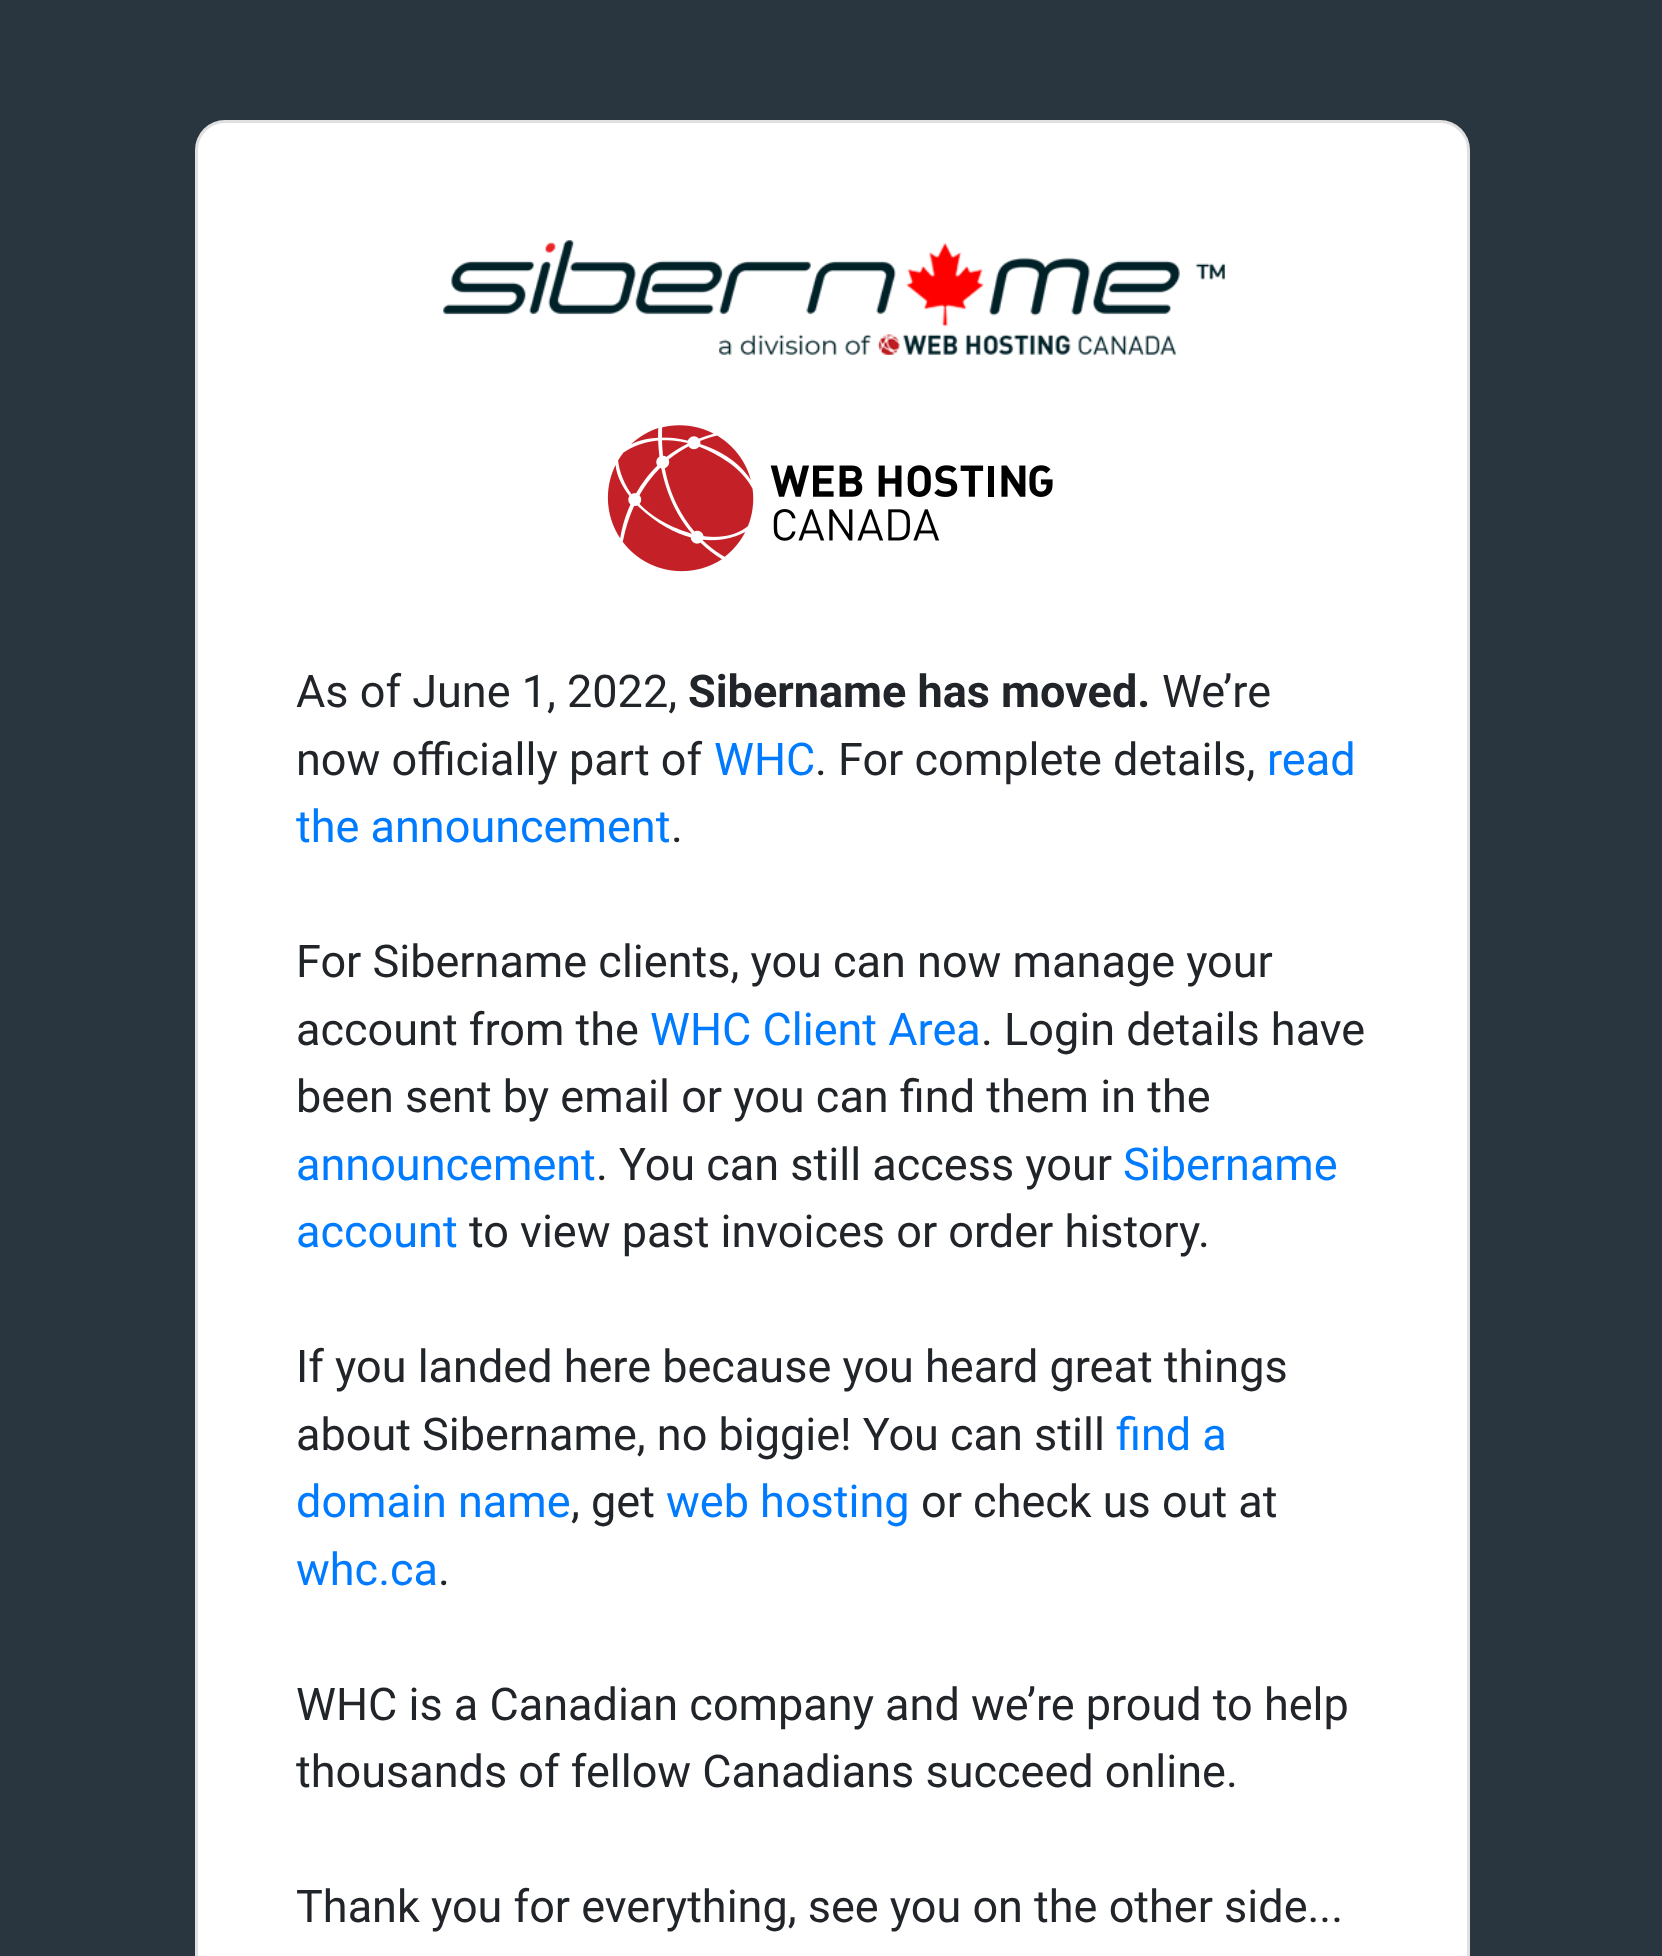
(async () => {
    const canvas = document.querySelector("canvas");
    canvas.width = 1662;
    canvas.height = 1956;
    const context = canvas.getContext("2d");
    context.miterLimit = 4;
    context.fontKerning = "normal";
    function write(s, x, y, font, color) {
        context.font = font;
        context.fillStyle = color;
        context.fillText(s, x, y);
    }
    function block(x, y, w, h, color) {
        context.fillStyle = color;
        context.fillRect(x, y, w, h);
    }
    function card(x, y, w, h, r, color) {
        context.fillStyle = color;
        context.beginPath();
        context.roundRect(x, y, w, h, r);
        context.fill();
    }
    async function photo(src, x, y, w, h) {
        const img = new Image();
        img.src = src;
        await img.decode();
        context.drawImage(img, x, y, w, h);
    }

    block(0, 0, 1662, 1956, "rgb(42, 54, 63)");
    card(195, 120, 1275, 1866, 30, "rgb(255, 255, 255)");
    context.beginPath();
    context.roundRect(196.5, 121.5, 1272, 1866, 28.5);
    context.strokeStyle = "rgba(0, 0, 0, 0.12)";
    context.lineWidth = 3;
    context.stroke();
    await photo("media/1.png", 443, 240, 782, 115);
    await photo("media/2.png", 607, 425, 446, 147);
    write("As of June 1, 2022,", 296, 707, "45px Roboto", "rgb(33, 37, 41)");
    write("Sibername has moved.", 688, 707, "bold 45px Roboto", "rgb(33, 37, 41)");
    write("We’re", 1162, 707, "45px Roboto", "rgb(33, 37, 41)");
    write("now officially part of", 296, 775, "45px Roboto", "rgb(33, 37, 41)");
    write("WHC", 714, 775, "45px Roboto", "rgb(0, 123, 255)");
    write(". For complete details,", 815, 775, "45px Roboto", "rgb(33, 37, 41)");
    write("read", 1267, 775, "45px Roboto", "rgb(0, 123, 255)");
    write("the announcement", 296, 842, "45px Roboto", "rgb(0, 123, 255)");
    write(".", 671, 842, "45px Roboto", "rgb(33, 37, 41)");
    write("For Sibername clients, you can now manage your", 296, 977, "45px Roboto", "rgb(33, 37, 41)");
    write("account from the", 296, 1045, "45px Roboto", "rgb(33, 37, 41)");
    write("WHC Client Area", 650, 1045, "45px Roboto", "rgb(0, 123, 255)");
    write(". Login details have", 981, 1045, "45px Roboto", "rgb(33, 37, 41)");
    write("been sent by email or you can find them in the", 296, 1112, "45px Roboto", "rgb(33, 37, 41)");
    write("announcement", 296, 1180, "45px Roboto", "rgb(0, 123, 255)");
    write(". You can still access your", 596, 1180, "45px Roboto", "rgb(33, 37, 41)");
    write("Sibername", 1123, 1180, "45px Roboto", "rgb(0, 123, 255)");
    write("account", 296, 1247, "45px Roboto", "rgb(0, 123, 255)");
    write("to view past invoices or order history.", 469, 1247, "45px Roboto", "rgb(33, 37, 41)");
    write("If you landed here because you heard great things", 296, 1382, "45px Roboto", "rgb(33, 37, 41)");
    write("about Sibername, no biggie! You can still", 296, 1450, "45px Roboto", "rgb(33, 37, 41)");
    write("find a", 1116, 1450, "45px Roboto", "rgb(0, 123, 255)");
    write("domain name", 296, 1517, "45px Roboto", "rgb(0, 123, 255)");
    write(", get", 571, 1517, "45px Roboto", "rgb(33, 37, 41)");
    write("web hosting", 666, 1517, "45px Roboto", "rgb(0, 123, 255)");
    write("or check us out at", 921, 1517, "45px Roboto", "rgb(33, 37, 41)");
    write("whc.ca", 296, 1585, "45px Roboto", "rgb(0, 123, 255)");
    write(".", 438, 1585, "45px Roboto", "rgb(33, 37, 41)");
    write("WHC is a Canadian company and we’re proud to help", 296, 1720, "45px Roboto", "rgb(33, 37, 41)");
    write("thousands of fellow Canadians succeed online.", 296, 1787, "45px Roboto", "rgb(33, 37, 41)");
    write("Thank you for everything, see you on the other side...", 296, 1922, "45px Roboto", "rgb(33, 37, 41)");
})();
